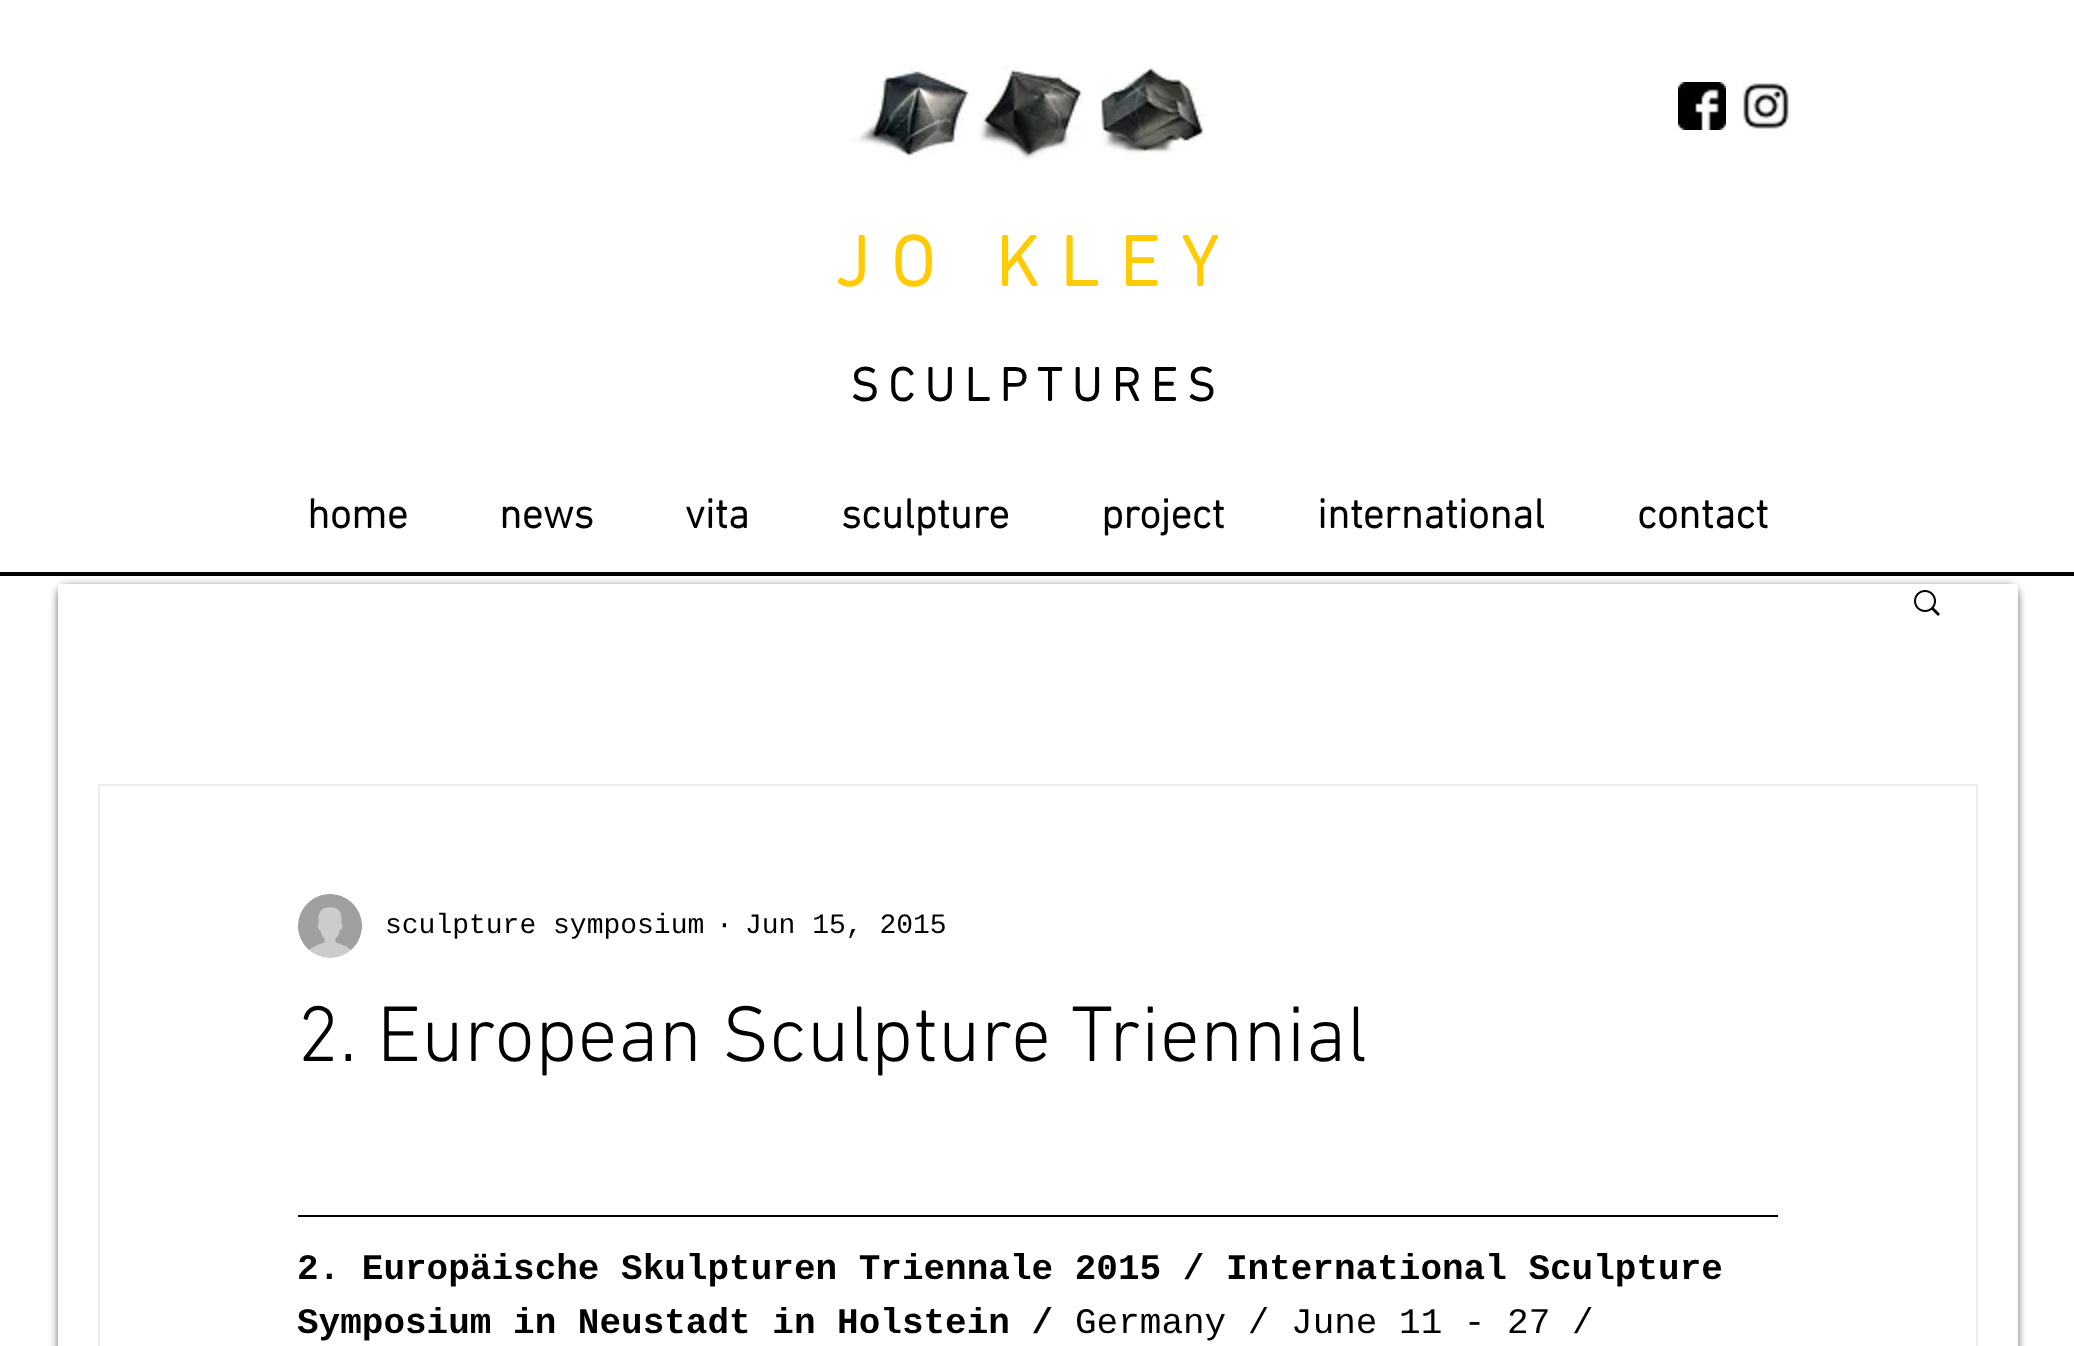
(async () => {
    const canvas = document.querySelector("canvas");
    canvas.width = 2074;
    canvas.height = 1346;
    const context = canvas.getContext("2d");
    context.miterLimit = 4;
    context.fontKerning = "normal";
    function write(s, x, y, font, color) {
        context.font = font;
        context.fillStyle = color;
        context.fillText(s, x, y);
    }
    function block(x, y, w, h, color) {
        context.fillStyle = color;
        context.fillRect(x, y, w, h);
    }
    async function photo(src, x, y, w, h) {
        const img = new Image();
        img.src = src;
        await img.decode();
        context.drawImage(img, x, y, w, h);
    }

    block(0, 0, 2074, 1346, "rgb(255, 255, 255)");
    await photo("media/1.png", 852, 65, 352, 97);
    await photo("media/2.png", 1678, 82, 48, 48);
    await photo("media/3.png", 1742, 82, 48, 48);
    context.letterSpacing = "21.5px";
    write("JO KLEY", 835, 286, "bold 72px 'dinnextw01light'", "rgb(255, 203, 5)");
    context.letterSpacing = "9.5px";
    write("SCULPTURES", 850, 401, "bold 48px 'dinnextw01light'", "rgb(0, 0, 0)");
    context.letterSpacing = "0px";
    write("home", 307, 528, "bold 42px 'dinnextw01light'", "rgb(0, 0, 0)");
    write("news", 499, 528, "bold 42px 'dinnextw01light'", "rgb(0, 0, 0)");
    write("vita", 685, 528, "bold 42px 'dinnextw01light'", "rgb(0, 0, 0)");
    write("sculpture", 841, 528, "bold 42px 'dinnextw01light'", "rgb(0, 0, 0)");
    write("project", 1101, 528, "bold 42px 'dinnextw01light'", "rgb(0, 0, 0)");
    write("international", 1317, 528, "bold 42px 'dinnextw01light'", "rgb(0, 0, 0)");
    write("contact", 1637, 528, "bold 42px 'dinnextw01light'", "rgb(0, 0, 0)");
    block(0, 572, 2074, 4, "rgb(0, 0, 0)");
    context.fillStyle = "rgba(0, 0, 0, 0.6)";
    context.filter = "blur(4px)";
    context.beginPath();
    context.roundRect(58, 586, 1960, 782, 10);
    context.fill();
    context.filter = "none";
    block(58, 584, 1960, 762, "rgb(255, 255, 255)");
    await photo("media/4.png", 1914, 590, 26, 26);
    context.strokeStyle = "rgb(236, 236, 236)";
    context.lineWidth = 2;
    context.strokeRect(99, 785, 1878, 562);
    await photo("media/5.png", 298, 894, 64, 64);
    write("sculpture symposium", 385, 933, "28px Liberation Mono", "rgb(0, 0, 0)");
    write("·", 716, 933, "28px Liberation Mono", "rgb(0, 0, 0)");
    write("Jun 15, 2015", 745, 933, "28px Liberation Mono", "rgb(0, 0, 0)");
    write("2. European Sculpture Triennial", 297, 1061, "300 80px 'dinnextw01light'", "rgb(0, 0, 0)");
    block(298, 1215, 1480, 2, "rgb(0, 0, 0)");
    write("2. Europäische Skulpturen Triennale 2015 / International Sculpture", 297, 1279, "bold 36px Liberation Mono", "rgb(0, 0, 0)");
    write("Symposium in Neustadt in Holstein /", 297, 1333, "bold 36px Liberation Mono", "rgb(0, 0, 0)");
    write("Germany / June 11 - 27 /", 1075, 1333, "36px Liberation Mono", "rgb(0, 0, 0)");
})();
